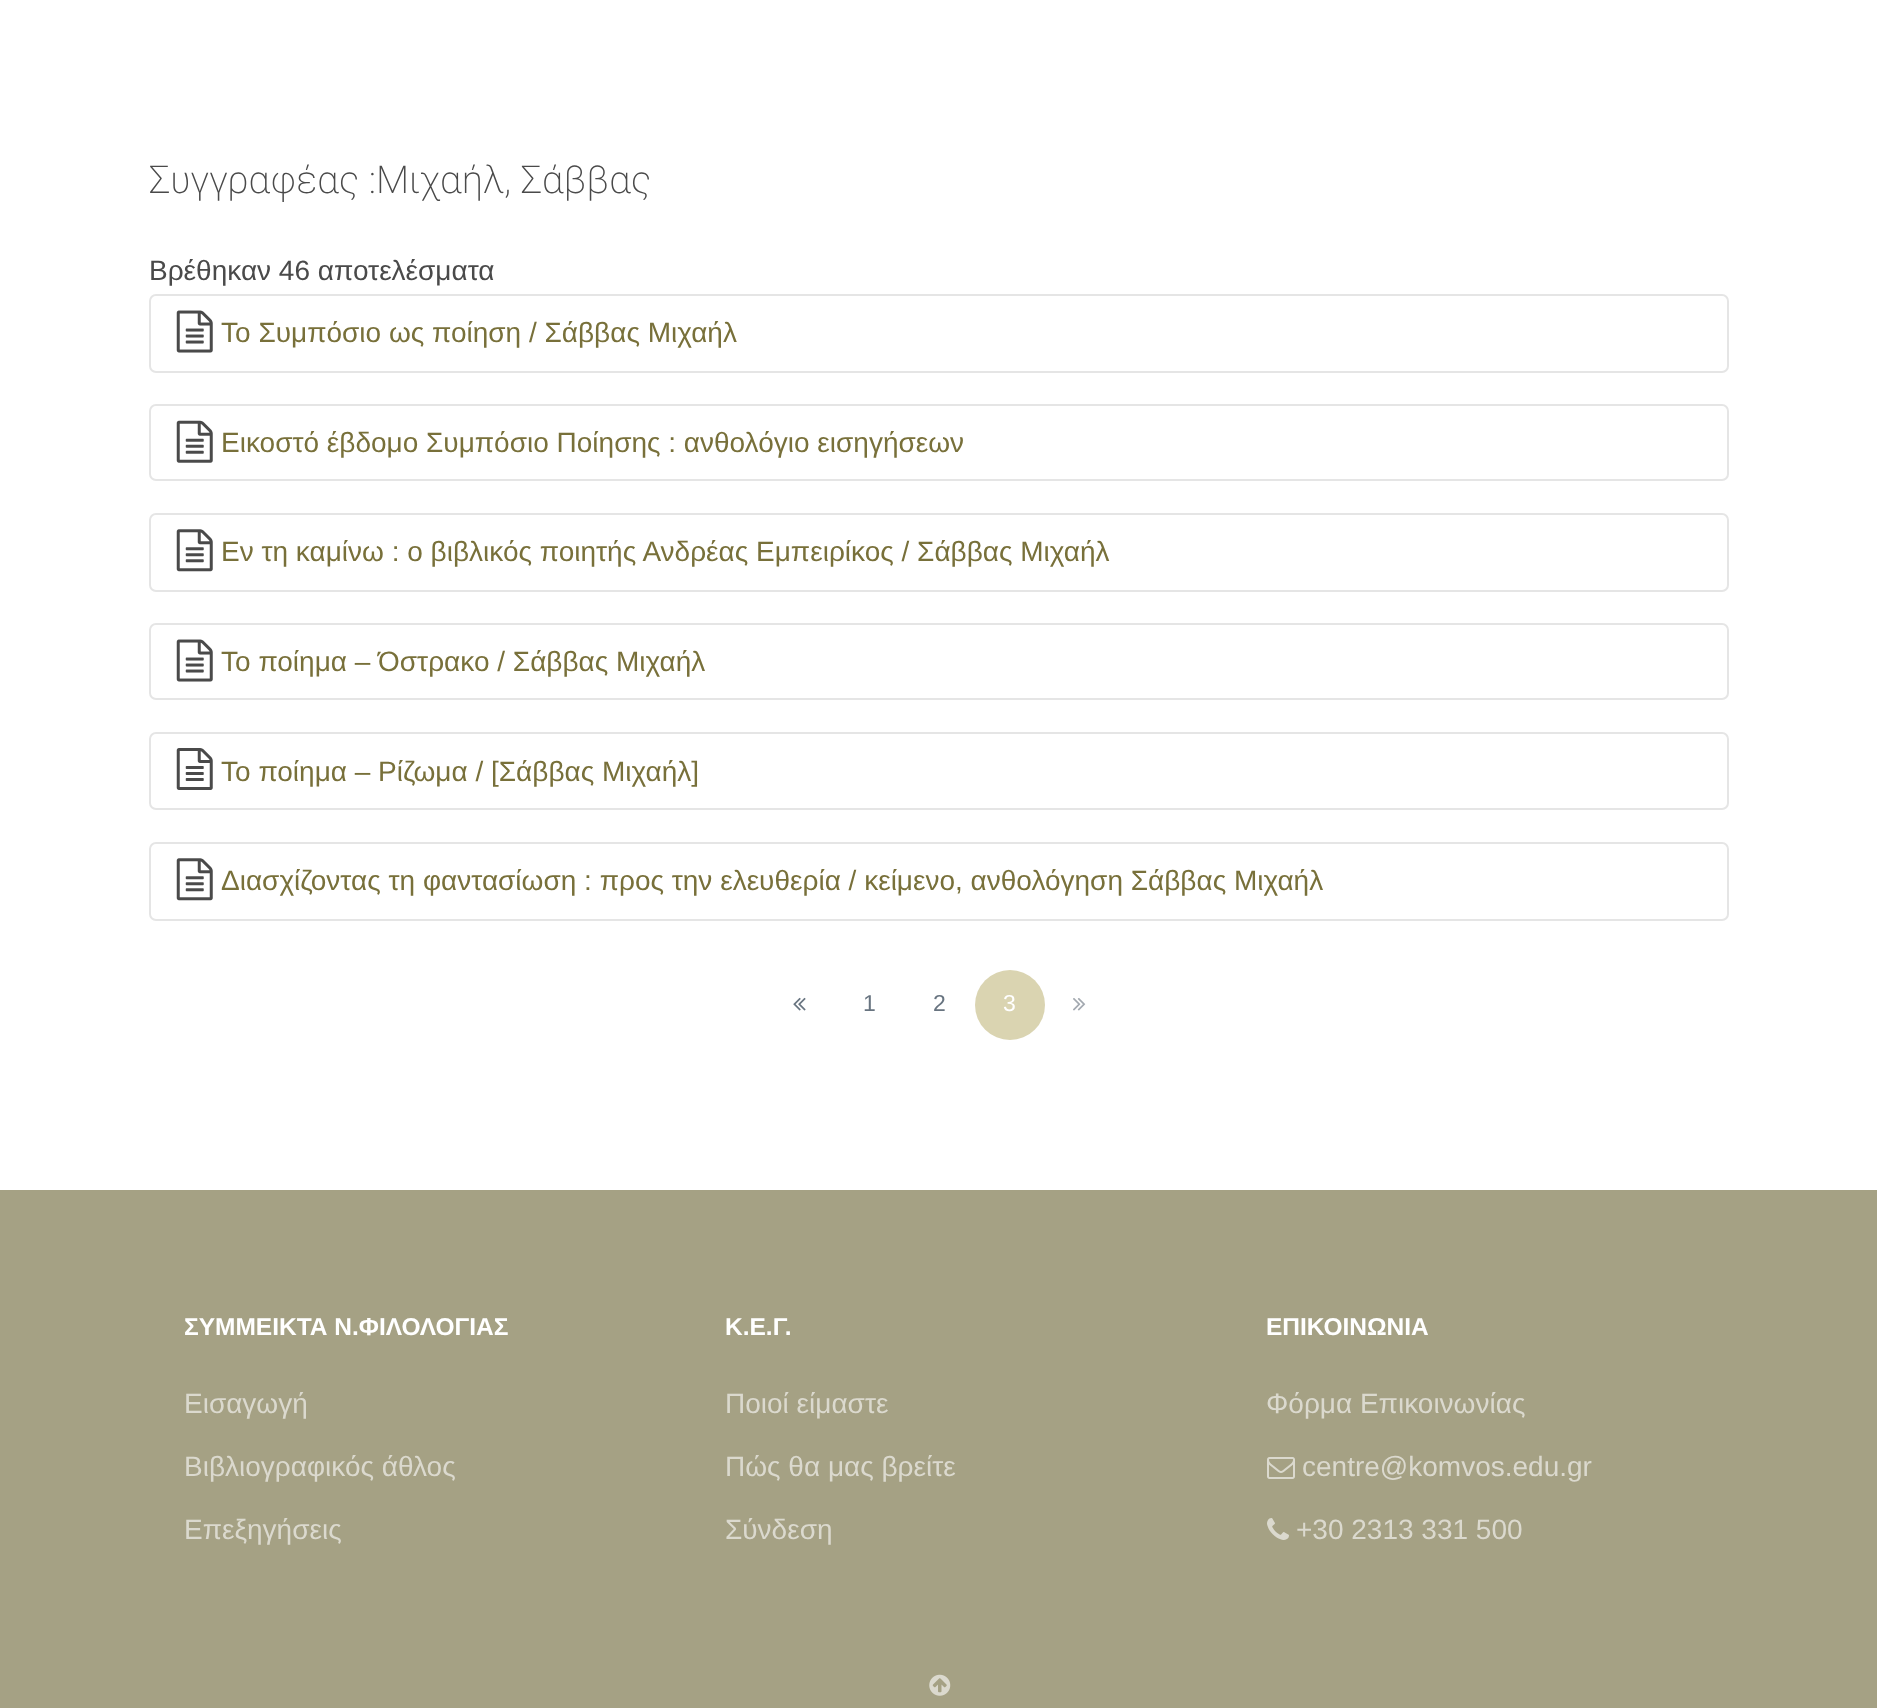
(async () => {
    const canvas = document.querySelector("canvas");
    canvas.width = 1877;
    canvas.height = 1708;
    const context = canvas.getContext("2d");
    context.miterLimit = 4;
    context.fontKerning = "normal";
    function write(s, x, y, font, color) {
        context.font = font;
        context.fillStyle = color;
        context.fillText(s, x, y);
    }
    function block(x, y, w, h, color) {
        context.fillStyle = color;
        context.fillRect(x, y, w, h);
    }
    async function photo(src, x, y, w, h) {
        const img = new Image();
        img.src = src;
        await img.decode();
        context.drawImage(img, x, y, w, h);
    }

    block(0, 0, 1877, 1708, "rgb(255, 255, 255)");
    write("Συγγραφέας :Μιχαήλ, Σάββας", 149, 193, "200 38.5px Roboto", "rgb(74, 74, 74)");
    write("Βρέθηκαν 46 αποτελέσματα", 149, 280, "28px Liberation Sans", "rgb(74, 74, 74)");
    context.beginPath();
    context.roundRect(150, 295, 1578, 77, 6);
    context.strokeStyle = "rgb(229, 229, 229)";
    context.lineWidth = 2;
    context.stroke();
    await photo("media/1.png", 176, 310, 37, 43);
    write("Το Συμπόσιο ως ποίηση / Σάββας Μιχαήλ", 221, 342, "28px Liberation Sans", "rgb(120, 112, 58)");
    context.beginPath();
    context.roundRect(150, 405, 1578, 75, 6);
    context.stroke();
    await photo("media/2.png", 176, 420, 37, 43);
    write("Εικοστό έβδομο Συμπόσιο Ποίησης : ανθολόγιο εισηγήσεων", 221, 452, "28px Liberation Sans", "rgb(120, 112, 58)");
    context.beginPath();
    context.roundRect(150, 514, 1578, 77, 6);
    context.stroke();
    await photo("media/3.png", 176, 529, 37, 43);
    write("Εν τη καμίνω : ο βιβλικός ποιητής Ανδρέας Εμπειρίκος / Σάββας Μιχαήλ", 221, 561, "28px Liberation Sans", "rgb(120, 112, 58)");
    context.beginPath();
    context.roundRect(150, 624, 1578, 75, 6);
    context.stroke();
    await photo("media/1.png", 176, 639, 37, 43);
    write("Το ποίημα – Όστρακο / Σάββας Μιχαήλ", 221, 671, "28px Liberation Sans", "rgb(120, 112, 58)");
    context.beginPath();
    context.roundRect(150, 733, 1578, 76, 6);
    context.stroke();
    await photo("media/4.png", 176, 748, 37, 42);
    write("Το ποίημα – Ρίζωμα / [Σάββας Μιχαήλ]", 221, 781, "28px Liberation Sans", "rgb(120, 112, 58)");
    context.beginPath();
    context.roundRect(150, 843, 1578, 77, 6);
    context.stroke();
    await photo("media/3.png", 176, 858, 37, 43);
    write("Διασχίζοντας τη φαντασίωση : προς την ελευθερία / κείμενο, ανθολόγηση Σάββας Μιχαήλ", 221, 890, "28px Liberation Sans", "rgb(120, 112, 58)");
    await photo("media/5.png", 793, 997, 13, 14);
    write("1", 863, 1011, "23px Liberation Sans", "rgb(104, 116, 128)");
    write("2", 933, 1011, "23px Liberation Sans", "rgb(104, 116, 128)");
    context.fillStyle = "rgb(218, 212, 177)";
    context.beginPath();
    context.arc(1010, 1005, 35, 0, Math.PI * 2);
    context.fill();
    write("3", 1003, 1011, "23px Liberation Sans", "rgb(255, 255, 255)");
    await photo("media/6.png", 1073, 998, 13, 13);
    block(0, 1190, 1877, 518, "rgb(165, 161, 132)");
    write("ΣΥΜΜΕΙΚΤΑ Ν.ΦΙΛΟΛΟΓΙΑΣ", 184, 1335, "bold 24.5px Liberation Sans", "rgb(255, 255, 255)");
    write("Εισαγωγή", 184, 1413, "28px Liberation Sans", "rgb(219, 217, 206)");
    write("Βιβλιογραφικός άθλος", 184, 1476, "28px Liberation Sans", "rgb(219, 217, 206)");
    write("Επεξηγήσεις", 184, 1539, "28px Liberation Sans", "rgb(219, 217, 206)");
    write("Κ.Ε.Γ.", 725, 1335, "bold 24.5px Liberation Sans", "rgb(255, 255, 255)");
    write("Ποιοί είμαστε", 725, 1413, "28px Liberation Sans", "rgb(219, 217, 206)");
    write("Πώς θα μας βρείτε", 725, 1476, "28px Liberation Sans", "rgb(219, 217, 206)");
    write("Σύνδεση", 725, 1539, "28px Liberation Sans", "rgb(219, 217, 206)");
    write("ΕΠΙΚΟΙΝΩΝΙΑ", 1266, 1335, "bold 24.5px Liberation Sans", "rgb(255, 255, 255)");
    write("Φόρμα Επικοινωνίας", 1266, 1413, "28px Liberation Sans", "rgb(219, 217, 206)");
    await photo("media/7.png", 1267, 1457, 28, 22);
    write("centre@komvos.edu.gr", 1302, 1476, "28px Liberation Sans", "rgb(219, 217, 206)");
    await photo("media/8.png", 1267, 1518, 22, 22);
    write("+30 2313 331 500", 1296, 1539, "28px Liberation Sans", "rgb(219, 217, 206)");
    await photo("media/9.png", 929, 1674, 22, 22);
})();
